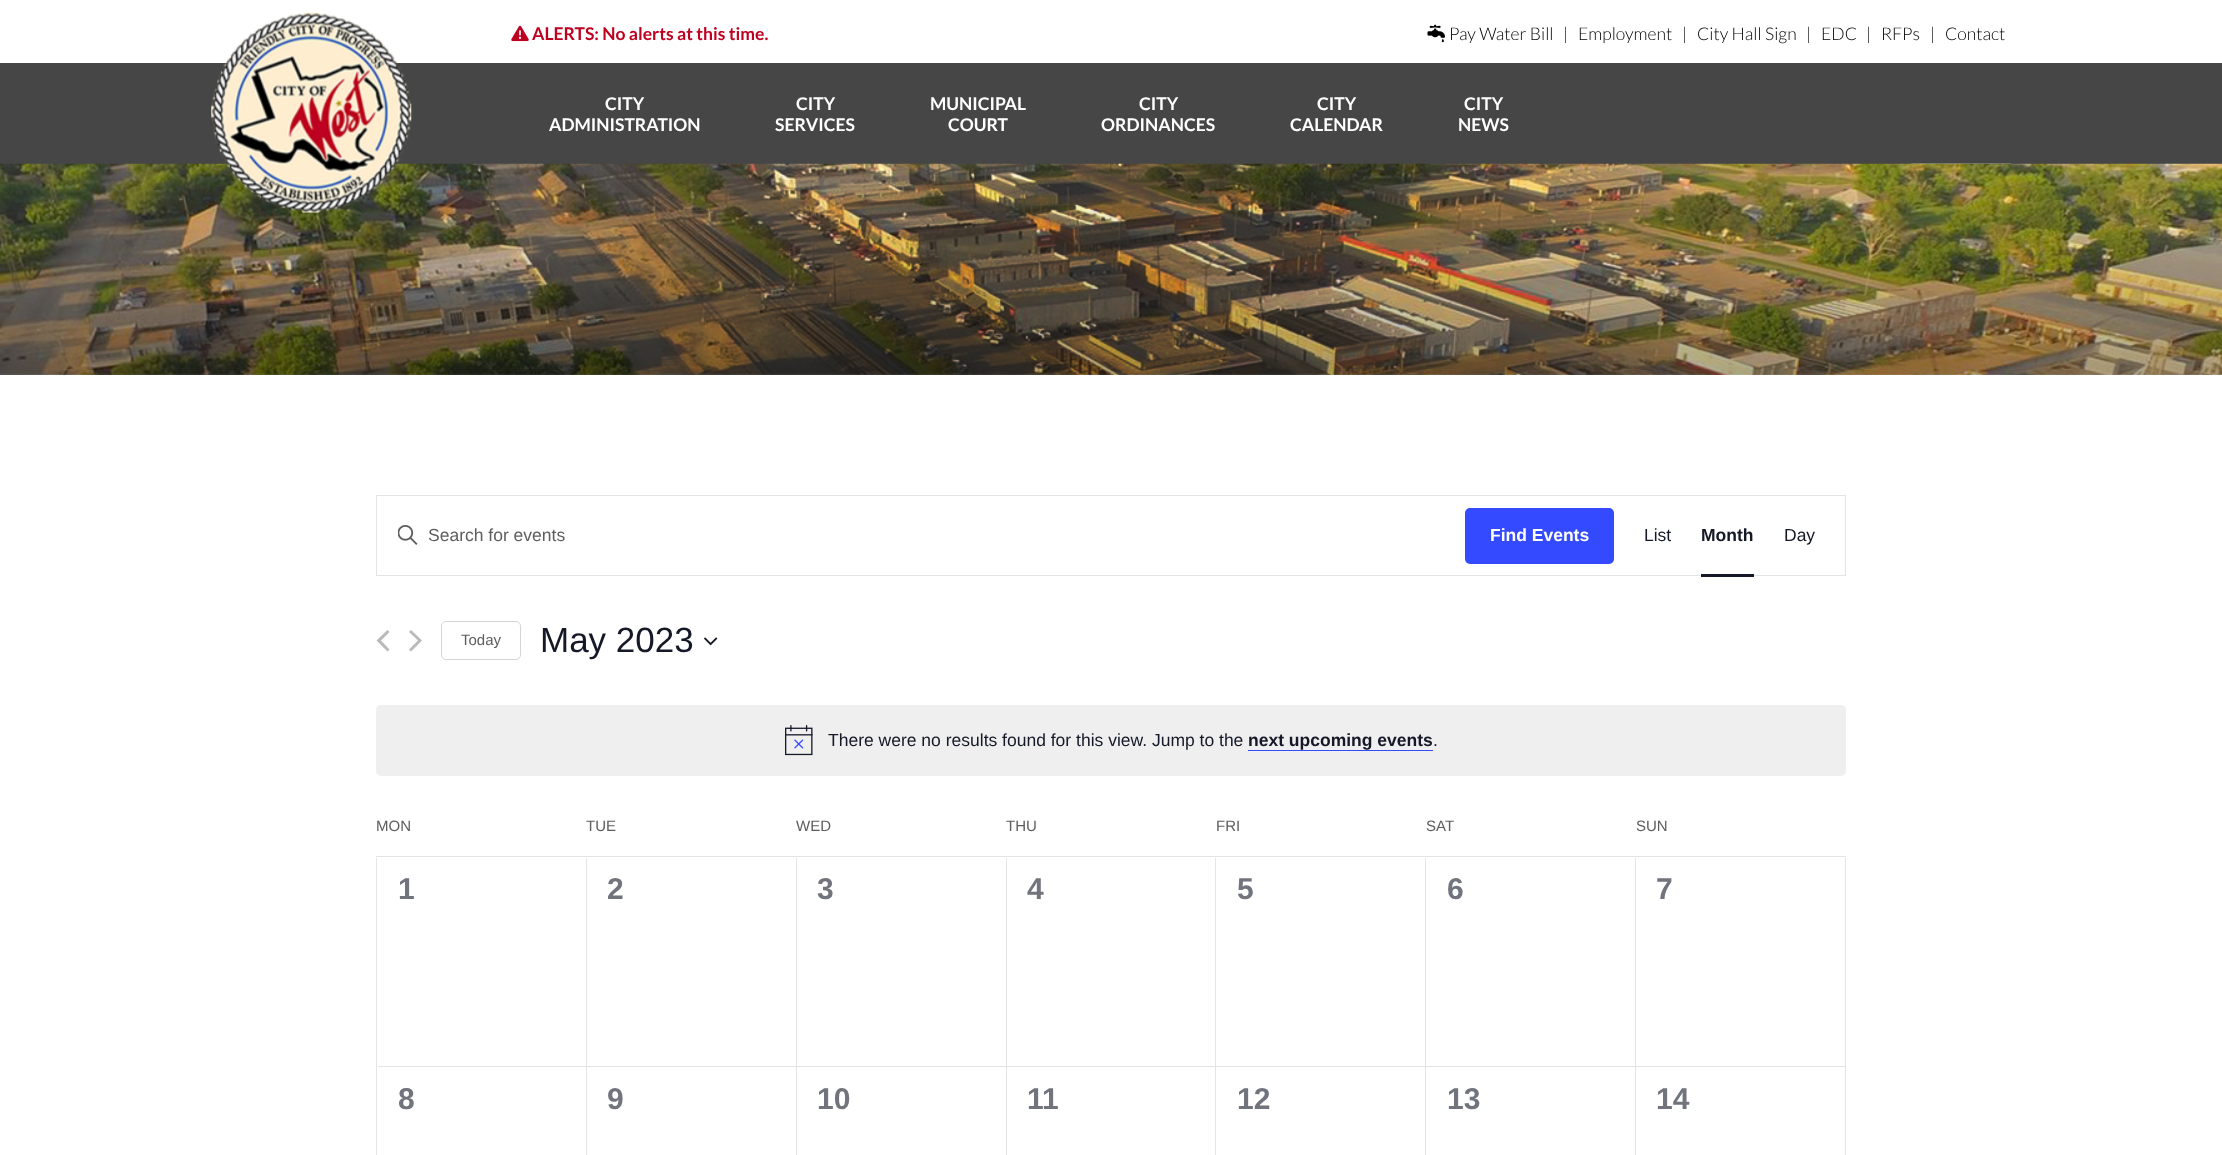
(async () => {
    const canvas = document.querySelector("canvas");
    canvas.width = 2222;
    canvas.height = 1155;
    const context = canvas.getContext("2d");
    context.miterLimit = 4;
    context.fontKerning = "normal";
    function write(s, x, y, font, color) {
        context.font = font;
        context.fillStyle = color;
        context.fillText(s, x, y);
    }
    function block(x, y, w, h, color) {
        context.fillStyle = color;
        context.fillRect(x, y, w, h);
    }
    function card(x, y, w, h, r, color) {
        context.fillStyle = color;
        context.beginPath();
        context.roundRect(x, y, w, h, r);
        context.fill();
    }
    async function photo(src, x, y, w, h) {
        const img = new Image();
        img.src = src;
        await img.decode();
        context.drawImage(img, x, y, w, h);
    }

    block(0, 0, 2222, 1155, "rgb(255, 255, 255)");
    block(0, 63, 2222, 100, "rgb(70, 70, 70)");
    await photo("media/4.png", 0, 163, 2222, 212);
    await photo("media/1.png", 211, 12, 201, 201);
    await photo("media/2.png", 511, 25, 18, 17);
    write("ALERTS: No alerts at this time.", 532, 40, "bold 17.5px Lato", "rgb(190, 1, 33)");
    await photo("media/3.png", 1427, 24, 18, 19);
    write("Pay Water Bill", 1449, 40, "300 17.5px Lato", "rgb(0, 0, 0)");
    write("|", 1563, 40, "300 17.5px Lato", "rgb(0, 0, 0)");
    write("Employment", 1578, 40, "300 17.5px Lato", "rgb(0, 0, 0)");
    write("|", 1682, 40, "300 17.5px Lato", "rgb(0, 0, 0)");
    write("City Hall Sign", 1697, 40, "300 17.5px Lato", "rgb(0, 0, 0)");
    write("|", 1806, 40, "300 17.5px Lato", "rgb(0, 0, 0)");
    write("EDC", 1821, 40, "300 17.5px Lato", "rgb(0, 0, 0)");
    write("|", 1866, 40, "300 17.5px Lato", "rgb(0, 0, 0)");
    write("RFPs", 1881, 40, "300 17.5px Lato", "rgb(0, 0, 0)");
    write("|", 1930, 40, "300 17.5px Lato", "rgb(0, 0, 0)");
    write("Contact", 1945, 40, "300 17.5px Lato", "rgb(0, 0, 0)");
    write("CITY", 605, 110, "bold 17.5px Lato", "rgb(255, 255, 255)");
    write("ADMINISTRATION", 549, 131, "bold 17.5px Lato", "rgb(255, 255, 255)");
    write("CITY", 796, 110, "bold 17.5px Lato", "rgb(255, 255, 255)");
    write("SERVICES", 775, 131, "bold 17.5px Lato", "rgb(255, 255, 255)");
    write("MUNICIPAL", 930, 110, "bold 17.5px Lato", "rgb(255, 255, 255)");
    write("COURT", 948, 131, "bold 17.5px Lato", "rgb(255, 255, 255)");
    write("CITY", 1139, 110, "bold 17.5px Lato", "rgb(255, 255, 255)");
    write("ORDINANCES", 1101, 131, "bold 17.5px Lato", "rgb(255, 255, 255)");
    write("CITY", 1317, 110, "bold 17.5px Lato", "rgb(255, 255, 255)");
    write("CALENDAR", 1290, 131, "bold 17.5px Lato", "rgb(255, 255, 255)");
    write("CITY", 1464, 110, "bold 17.5px Lato", "rgb(255, 255, 255)");
    write("NEWS", 1458, 131, "bold 17.5px Lato", "rgb(255, 255, 255)");
    context.strokeStyle = "rgb(228, 228, 228)";
    context.strokeRect(376.5, 495.5, 1469, 80);
    await photo("media/5.png", 398, 525, 20, 20);
    write("Search for events", 428, 541, "17.5px Liberation Sans", "rgb(93, 93, 93)");
    card(1465, 508, 149, 56, 5, "rgb(51, 74, 255)");
    write("Find Events", 1490, 541, "bold 17.5px Liberation Sans", "rgb(255, 255, 255)");
    write("List", 1644, 541, "17.5px Liberation Sans", "rgb(20, 24, 39)");
    write("Month", 1701, 541, "bold 17.5px Liberation Sans", "rgb(20, 24, 39)");
    block(1701, 574, 53, 3, "rgb(20, 24, 39)");
    write("Day", 1784, 541, "17.5px Liberation Sans", "rgb(20, 24, 39)");
    context.fillStyle = "rgb(186, 186, 186)";
    context.beginPath();
    context.moveTo(389.5, 649.5);
    context.lineTo(387.5, 651.5);
    context.lineTo(376.5, 640.5);
    context.lineTo(387.5, 630);
    context.lineTo(389.5, 632);
    context.lineTo(381, 640.5);
    context.closePath();
    context.moveTo(409, 632);
    context.lineTo(411, 630);
    context.lineTo(422, 640.5);
    context.lineTo(411, 651.5);
    context.lineTo(409, 649.5);
    context.lineTo(418, 640.5);
    context.closePath();
    context.fill();
    context.beginPath();
    context.roundRect(441.5, 621.5, 79, 38, 4.5);
    context.strokeStyle = "rgb(213, 213, 213)";
    context.stroke();
    write("Today", 461, 645, "15px Liberation Sans", "rgb(93, 93, 93)");
    write("May 2023", 540, 652, "35px Liberation Sans", "rgb(20, 24, 39)");
    await photo("media/6.png", 704, 637, 14, 9);
    card(376, 705, 1470, 71, 5, "rgb(239, 239, 240)");
    await photo("media/7.png", 785, 725, 28, 31);
    write("There were no results found for this view. Jump to the", 828, 746, "17.5px Liberation Sans", "rgb(20, 24, 39)");
    write("next upcoming events", 1248, 746, "bold 17.5px Liberation Sans", "rgb(20, 24, 39)");
    block(1248, 750, 185, 1, "rgb(51, 74, 255)");
    write(".", 1433, 746, "17.5px Liberation Sans", "rgb(20, 24, 39)");
    write("MON", 376, 831, "15px Liberation Sans", "rgb(93, 93, 93)");
    write("TUE", 586, 831, "15px Liberation Sans", "rgb(93, 93, 93)");
    write("WED", 796, 831, "15px Liberation Sans", "rgb(93, 93, 93)");
    write("THU", 1006, 831, "15px Liberation Sans", "rgb(93, 93, 93)");
    write("FRI", 1216, 831, "15px Liberation Sans", "rgb(93, 93, 93)");
    write("SAT", 1426, 831, "15px Liberation Sans", "rgb(93, 93, 93)");
    write("SUN", 1636, 831, "15px Liberation Sans", "rgb(93, 93, 93)");
    block(376, 856, 1470, 1, "rgb(228, 228, 228)");
    block(376, 858, 1, 297, "rgb(228, 228, 228)");
    block(586, 858, 1, 297, "rgb(228, 228, 228)");
    block(378, 1066, 210, 1, "rgb(228, 228, 228)");
    write("1", 398, 899, "bold 30px Liberation Sans", "rgb(114, 116, 125)");
    block(796, 858, 1, 297, "rgb(228, 228, 228)");
    block(588, 1066, 210, 1, "rgb(228, 228, 228)");
    write("2", 607, 899, "bold 30px Liberation Sans", "rgb(114, 116, 125)");
    block(1006, 858, 1, 297, "rgb(228, 228, 228)");
    block(798, 1066, 210, 1, "rgb(228, 228, 228)");
    write("3", 817, 899, "bold 30px Liberation Sans", "rgb(114, 116, 125)");
    block(1215, 858, 1, 297, "rgb(228, 228, 228)");
    block(1008, 1066, 208, 1, "rgb(228, 228, 228)");
    write("4", 1027, 899, "bold 30px Liberation Sans", "rgb(114, 116, 125)");
    block(1425, 858, 1, 297, "rgb(228, 228, 228)");
    block(1216, 1066, 210, 1, "rgb(228, 228, 228)");
    write("5", 1237, 899, "bold 30px Liberation Sans", "rgb(114, 116, 125)");
    block(1635, 858, 1, 297, "rgb(228, 228, 228)");
    block(1426, 1066, 210, 1, "rgb(228, 228, 228)");
    write("6", 1447, 899, "bold 30px Liberation Sans", "rgb(114, 116, 125)");
    block(1845, 858, 1, 297, "rgb(228, 228, 228)");
    block(1636, 1066, 210, 1, "rgb(228, 228, 228)");
    write("7", 1656, 899, "bold 30px Liberation Sans", "rgb(114, 116, 125)");
    write("8", 398, 1109, "bold 30px Liberation Sans", "rgb(114, 116, 125)");
    write("9", 607, 1109, "bold 30px Liberation Sans", "rgb(114, 116, 125)");
    write("10", 817, 1109, "bold 30px Liberation Sans", "rgb(114, 116, 125)");
    write("11", 1027, 1109, "bold 30px Liberation Sans", "rgb(114, 116, 125)");
    write("12", 1237, 1109, "bold 30px Liberation Sans", "rgb(114, 116, 125)");
    write("13", 1447, 1109, "bold 30px Liberation Sans", "rgb(114, 116, 125)");
    write("14", 1656, 1109, "bold 30px Liberation Sans", "rgb(114, 116, 125)");
})();
